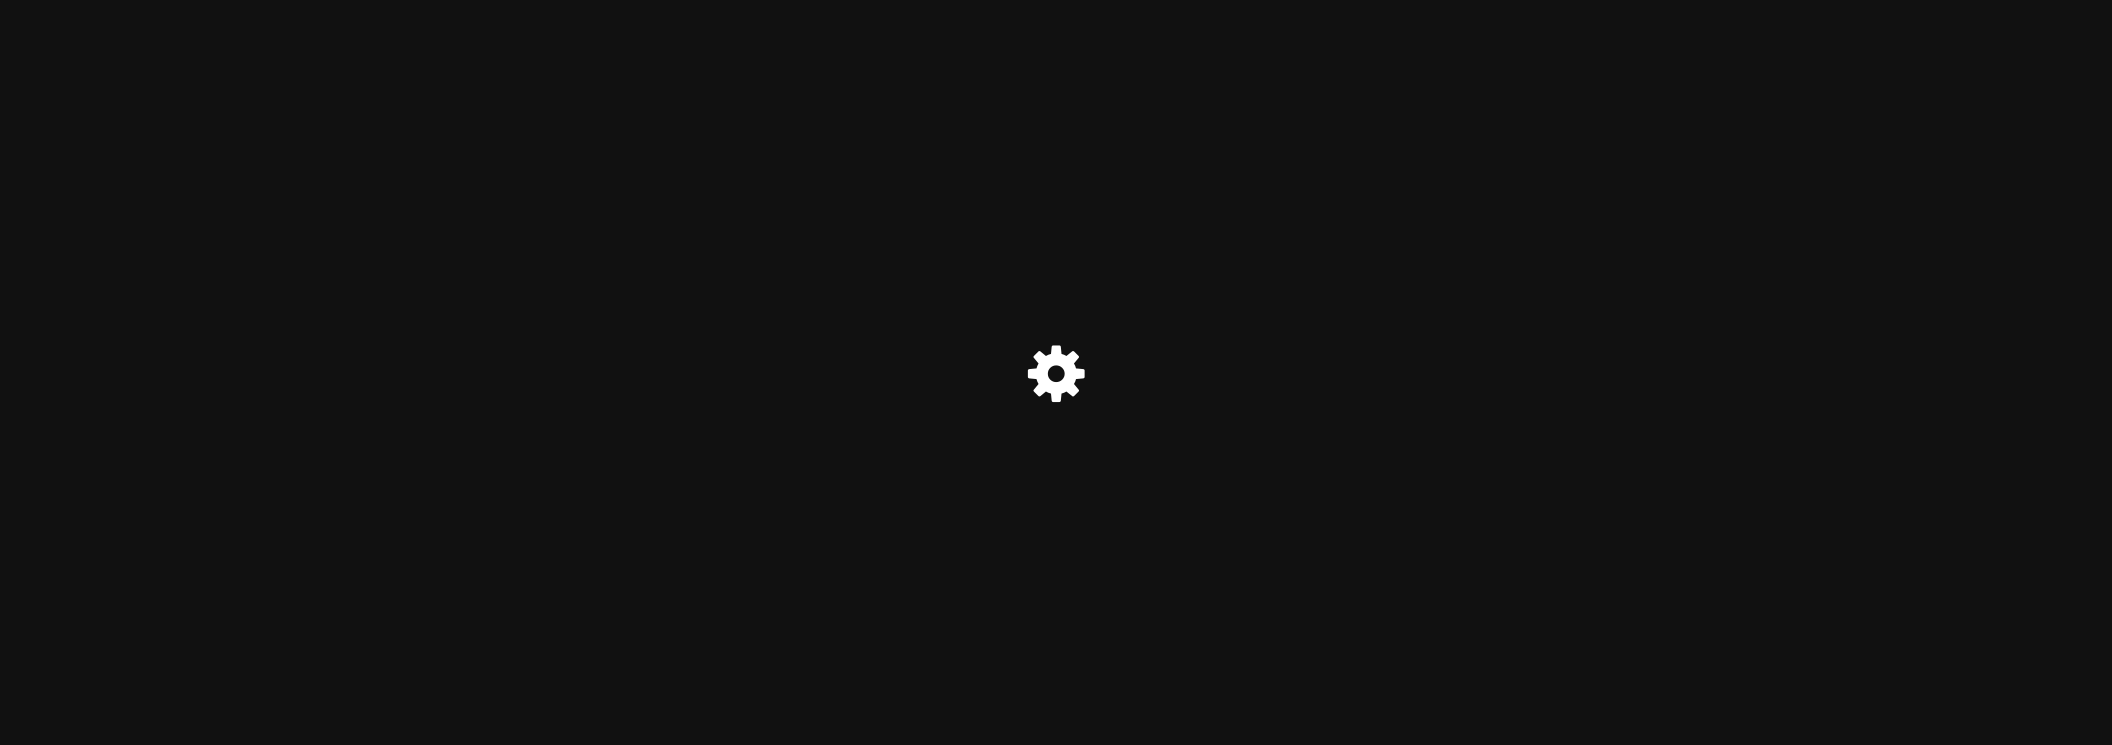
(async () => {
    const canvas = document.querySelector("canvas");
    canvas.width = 2112;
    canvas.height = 745;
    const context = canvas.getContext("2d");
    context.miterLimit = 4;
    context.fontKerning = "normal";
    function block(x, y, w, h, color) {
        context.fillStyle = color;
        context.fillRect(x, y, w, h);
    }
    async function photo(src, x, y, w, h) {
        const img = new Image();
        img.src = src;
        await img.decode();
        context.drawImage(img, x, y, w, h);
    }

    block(0, 0, 2112, 745, "rgb(17, 17, 17)");
    await photo("media/1.png", 1027, 345, 58, 58);
})();
